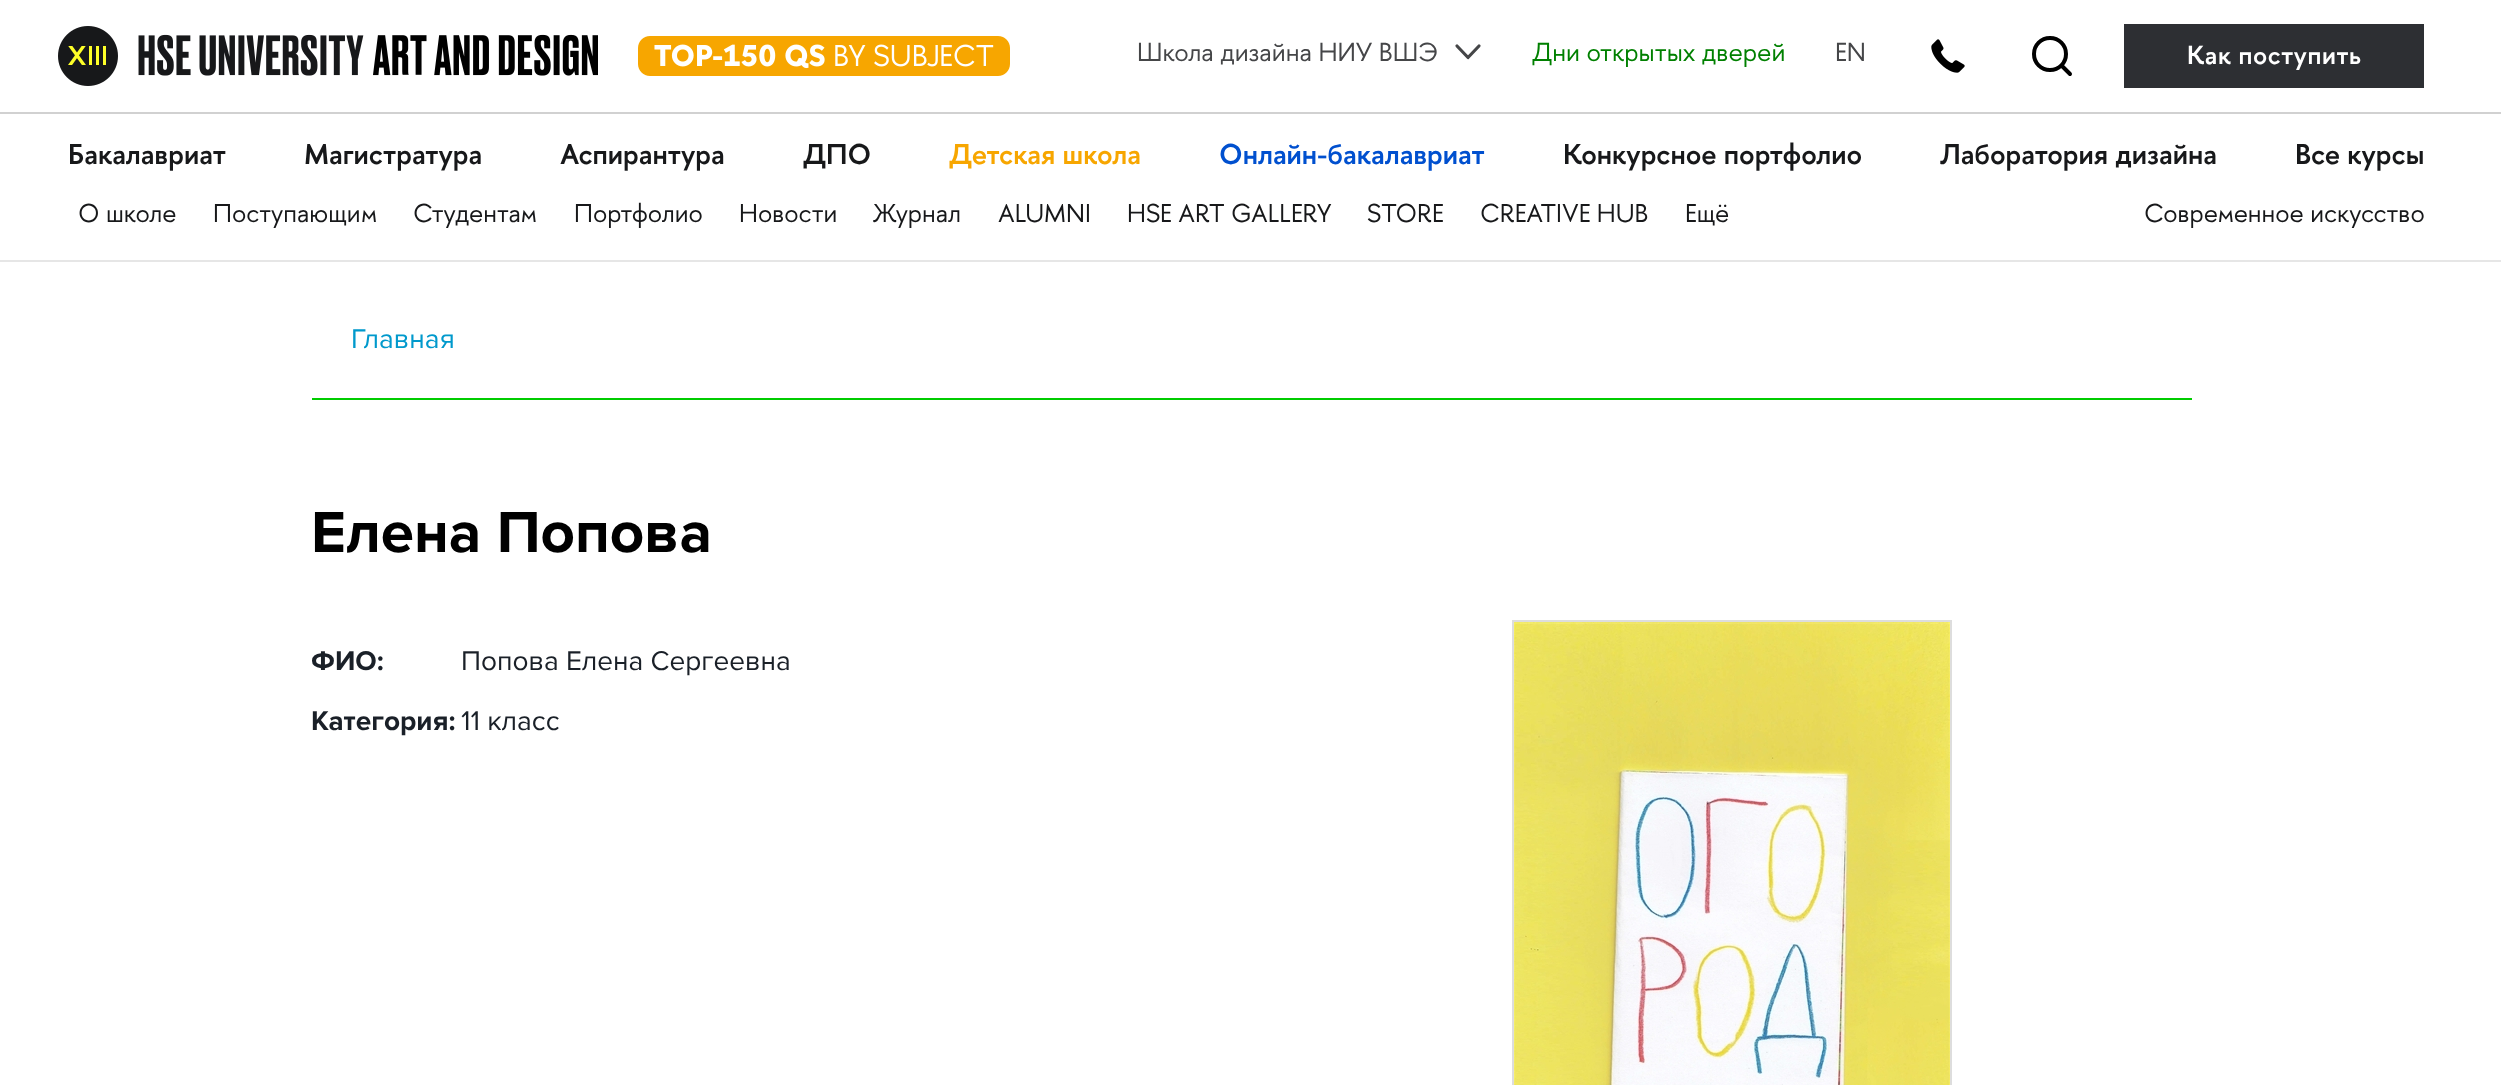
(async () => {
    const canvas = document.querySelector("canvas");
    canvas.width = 2501;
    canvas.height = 1085;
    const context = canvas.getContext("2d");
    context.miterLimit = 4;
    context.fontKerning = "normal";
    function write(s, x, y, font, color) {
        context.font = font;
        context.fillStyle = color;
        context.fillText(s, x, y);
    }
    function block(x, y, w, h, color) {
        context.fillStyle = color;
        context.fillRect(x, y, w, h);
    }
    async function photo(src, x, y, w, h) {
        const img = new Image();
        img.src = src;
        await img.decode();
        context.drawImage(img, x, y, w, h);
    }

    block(0, 0, 2501, 1085, "rgb(255, 255, 255)");
    block(0, 112, 2501, 2, "rgb(209, 209, 209)");
    await photo("media/1.png", 58, 26, 540, 60);
    await photo("media/2.png", 638, 36, 372, 40);
    write("Школа дизайна НИУ ВШЭ", 1137, 61, "26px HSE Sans", "rgb(69, 70, 72)");
    context.beginPath();
    context.moveTo(1457, 46);
    context.lineTo(1468, 57.5);
    context.lineTo(1479, 46);
    context.strokeStyle = "rgb(69, 70, 72)";
    context.lineWidth = 3.2;
    context.lineCap = "round";
    context.lineJoin = "round";
    context.stroke();
    write("Дни открытых дверей", 1532, 61, "26px HSE Sans", "rgb(0, 128, 0)");
    write("EN", 1835, 61, "26px HSE Sans", "rgb(69, 70, 72)");
    await photo("media/3.png", 1931, 39, 34, 34);
    context.beginPath();
    context.moveTo(2050, 38);
    context.bezierCurveTo(2041, 38, 2034, 45, 2034, 54);
    context.bezierCurveTo(2034, 63, 2041, 70, 2050, 70);
    context.bezierCurveTo(2059, 70, 2066, 63, 2066, 54);
    context.bezierCurveTo(2066, 45, 2059, 38, 2050, 38);
    context.closePath();
    context.moveTo(2070, 74);
    context.lineTo(2061.5, 65.5);
    context.strokeStyle = "rgb(0, 0, 0)";
    context.lineWidth = 4;
    context.stroke();
    block(2124, 24, 300, 64, "rgb(45, 47, 51)");
    context.letterSpacing = "0.6px";
    write("Как поступить", 2187, 64, "600 26px HSE Sans", "rgb(255, 255, 255)");
    block(0, 260, 2501, 2, "rgb(230, 230, 230)");
    context.letterSpacing = "0px";
    write("Бакалавриат", 68, 164, "600 28.6px HSE Sans", "rgb(23, 24, 26)");
    write("Магистратура", 304, 164, "600 28.6px HSE Sans", "rgb(23, 24, 26)");
    write("Аспирантура", 560, 164, "600 28.6px HSE Sans", "rgb(23, 24, 26)");
    write("ДПО", 803, 164, "600 28.6px HSE Sans", "rgb(23, 24, 26)");
    write("Детская школа", 949, 164, "600 28.6px HSE Sans", "rgb(247, 166, 0)");
    write("Онлайн-бакалавриат", 1219, 164, "600 28.6px HSE Sans", "rgb(0, 80, 207)");
    write("Конкурсное портфолио", 1563, 164, "600 28.6px HSE Sans", "rgb(23, 24, 26)");
    write("Лаборатория дизайна", 1940, 164, "600 28.6px HSE Sans", "rgb(23, 24, 26)");
    write("Все курсы", 2295, 164, "600 28.6px HSE Sans", "rgb(23, 24, 26)");
    write("О школе", 78, 222, "25.75px HSE Sans", "rgb(23, 24, 26)");
    write("Поступающим", 213, 222, "25.75px HSE Sans", "rgb(23, 24, 26)");
    write("Студентам", 413, 222, "25.75px HSE Sans", "rgb(23, 24, 26)");
    write("Портфолио", 574, 222, "25.75px HSE Sans", "rgb(23, 24, 26)");
    write("Новости", 739, 222, "25.75px HSE Sans", "rgb(23, 24, 26)");
    write("Журнал", 873, 222, "25.75px HSE Sans", "rgb(23, 24, 26)");
    write("ALUMNI", 998, 222, "25.75px HSE Sans", "rgb(23, 24, 26)");
    write("HSE ART GALLERY", 1127, 222, "25.75px HSE Sans", "rgb(23, 24, 26)");
    write("STORE", 1367, 222, "25.75px HSE Sans", "rgb(23, 24, 26)");
    write("CREATIVE HUB", 1480, 222, "25.75px HSE Sans", "rgb(23, 24, 26)");
    write("Ещё", 1685, 222, "25.75px HSE Sans", "rgb(23, 24, 26)");
    write("Современное искусство", 2144, 222, "25.75px HSE Sans", "rgb(23, 24, 26)");
    write("Главная", 351, 348, "28px Proxima Nova", "rgb(0, 153, 204)");
    block(312, 398, 1880, 2, "rgb(0, 204, 0)");
    write("Елена Попова", 311, 552, "60px 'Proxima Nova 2'", "rgb(0, 0, 0)");
    write("ФИО:", 311, 670, "28px 'Proxima Nova 2'", "rgb(26, 32, 40)");
    write("Попова Елена Сергеевна", 461, 670, "28px Proxima Nova", "rgb(26, 32, 40)");
    write("Категория:", 311, 730, "28px 'Proxima Nova 2'", "rgb(26, 32, 40)");
    write("11 класс", 461, 730, "28px Proxima Nova", "rgb(26, 32, 40)");
    context.strokeStyle = "rgb(221, 221, 221)";
    context.lineWidth = 2;
    context.lineJoin = "miter";
    context.strokeRect(1513, 621, 438, 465);
    await photo("media/4.png", 1514, 622, 436, 463);
})();
